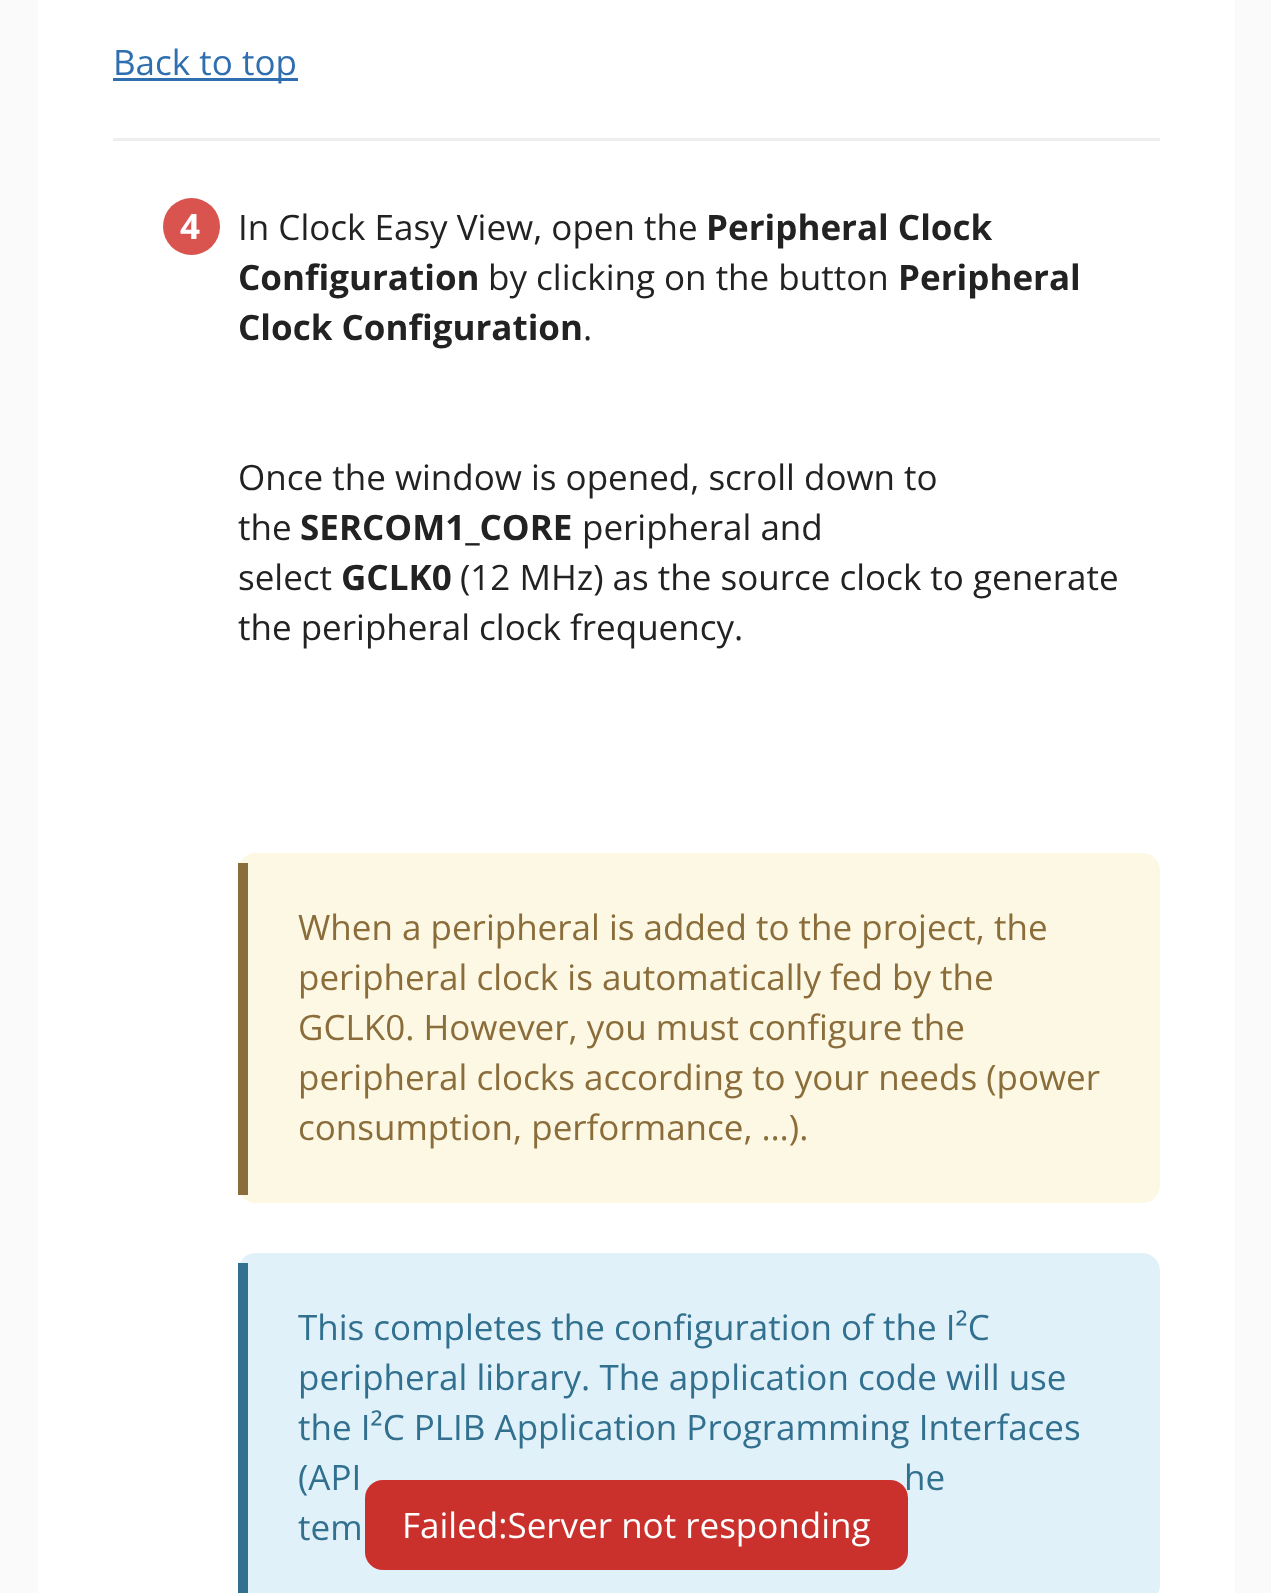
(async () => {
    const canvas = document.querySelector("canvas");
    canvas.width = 1271;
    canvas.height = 1593;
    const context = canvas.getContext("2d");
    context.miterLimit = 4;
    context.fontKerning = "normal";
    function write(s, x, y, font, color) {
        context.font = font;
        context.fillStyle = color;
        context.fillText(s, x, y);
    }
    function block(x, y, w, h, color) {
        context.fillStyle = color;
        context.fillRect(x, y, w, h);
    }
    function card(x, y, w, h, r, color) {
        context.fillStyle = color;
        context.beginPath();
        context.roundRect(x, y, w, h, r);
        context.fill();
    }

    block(0, 0, 1271, 1593, "rgb(250, 250, 250)");
    block(38, 0, 1197, 1593, "rgb(255, 255, 255)");
    block(113, 78, 185, 3, "rgb(47, 111, 175)");
    write("Back to top", 113, 75, "35px Open Sans", "rgb(47, 111, 175)");
    block(113, 138, 1047, 3, "rgb(238, 238, 238)");
    context.fillStyle = "rgb(217, 83, 79)";
    context.beginPath();
    context.arc(191.5, 226.5, 28.5, 0, Math.PI * 2);
    context.fill();
    write("4", 180, 239, "bold 35px Open Sans", "rgb(255, 255, 255)");
    write("In Clock Easy View, open the", 238, 240, "35px Open Sans", "rgb(34, 34, 34)");
    write("Peripheral Clock", 706, 240, "bold 35px Open Sans", "rgb(34, 34, 34)");
    write("Configuration", 238, 290, "bold 35px Open Sans", "rgb(34, 34, 34)");
    write("by clicking on the button", 488, 290, "35px Open Sans", "rgb(34, 34, 34)");
    write("Peripheral", 898, 290, "bold 35px Open Sans", "rgb(34, 34, 34)");
    write("Clock Configuration", 238, 340, "bold 35px Open Sans", "rgb(34, 34, 34)");
    write(".", 583, 340, "35px Open Sans", "rgb(34, 34, 34)");
    write("Once the window is opened, scroll down to", 238, 490, "35px Open Sans", "rgb(34, 34, 34)");
    write("the", 238, 540, "35px Open Sans", "rgb(34, 34, 34)");
    write("SERCOM1_CORE", 300, 540, "bold 35px Open Sans", "rgb(34, 34, 34)");
    write("peripheral and", 582, 540, "35px Open Sans", "rgb(34, 34, 34)");
    write("select", 238, 590, "35px Open Sans", "rgb(34, 34, 34)");
    write("GCLK0", 341, 590, "bold 35px Open Sans", "rgb(34, 34, 34)");
    write("(12 MHz) as the source clock to generate", 460, 590, "35px Open Sans", "rgb(34, 34, 34)");
    write("the peripheral clock frequency.", 238, 640, "35px Open Sans", "rgb(34, 34, 34)");
    card(238, 853, 922, 350, 18, "rgb(252, 248, 227)");
    block(238, 863, 10, 332, "rgb(138, 109, 59)");
    write("When a peripheral is added to the project, the", 298, 940, "35px Open Sans", "rgb(138, 109, 59)");
    write("peripheral clock is automatically fed by the", 298, 990, "35px Open Sans", "rgb(138, 109, 59)");
    write("GCLK0. However, you must configure the", 298, 1040, "35px Open Sans", "rgb(138, 109, 59)");
    write("peripheral clocks according to your needs (power", 298, 1090, "35px Open Sans", "rgb(138, 109, 59)");
    write("consumption, performance, …).", 298, 1140, "35px Open Sans", "rgb(138, 109, 59)");
    card(238, 1253, 922, 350, 18, "rgb(225, 241, 249)");
    block(238, 1263, 10, 330, "rgb(49, 112, 143)");
    write("This completes the configuration of the I²C", 298, 1340, "35px Open Sans", "rgb(49, 112, 143)");
    write("peripheral library. The application code will use", 298, 1390, "35px Open Sans", "rgb(49, 112, 143)");
    write("the I²C PLIB Application Programming Interfaces", 298, 1440, "35px Open Sans", "rgb(49, 112, 143)");
    write("(API", 298, 1490, "35px Open Sans", "rgb(49, 112, 143)");
    write("he", 904, 1490, "35px Open Sans", "rgb(49, 112, 143)");
    write("tem", 298, 1540, "35px Open Sans", "rgb(49, 112, 143)");
    card(365, 1480, 543, 90, 18, "rgb(202, 48, 44)");
    write("Failed:Server not responding", 402, 1538, "35px Open Sans", "rgb(255, 255, 255)");
})();
